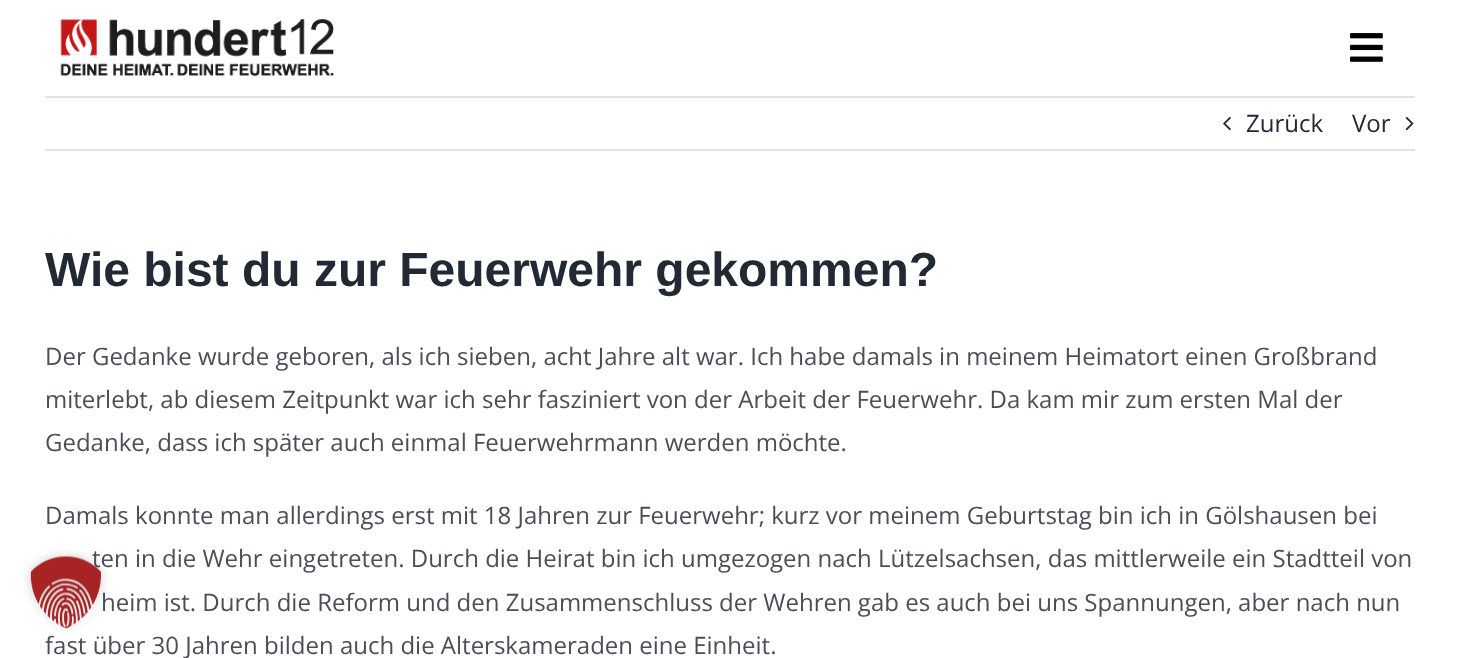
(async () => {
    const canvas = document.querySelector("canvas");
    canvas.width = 1459;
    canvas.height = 658;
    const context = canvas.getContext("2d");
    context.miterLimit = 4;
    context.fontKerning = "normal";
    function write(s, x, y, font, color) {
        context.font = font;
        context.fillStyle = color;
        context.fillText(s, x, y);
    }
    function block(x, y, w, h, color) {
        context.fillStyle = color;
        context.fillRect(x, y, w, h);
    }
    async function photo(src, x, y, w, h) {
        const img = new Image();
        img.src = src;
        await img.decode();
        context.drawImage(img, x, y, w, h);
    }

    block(0, 0, 1459, 658, "rgb(255, 255, 255)");
    await photo("media/1.png", 60, 19, 274, 57);
    await photo("media/2.png", 1350, 33, 33, 29);
    block(45, 96, 1370, 2, "rgb(226, 226, 226)");
    block(45, 149, 1370, 2, "rgb(226, 226, 226)");
    await photo("media/3.png", 1223, 116, 8, 15);
    write("Zurück", 1246, 132, "24px Open Sans", "rgb(33, 41, 52)");
    write("Vor", 1352, 132, "24px Open Sans", "rgb(33, 41, 52)");
    await photo("media/4.png", 1405, 116, 9, 15);
    write("Wie bist du zur Feuerwehr gekommen?", 45, 286, "bold 48px Liberation Sans", "rgb(33, 41, 52)");
    write("Der Gedanke wurde geboren, als ich sieben, acht Jahre alt war. Ich habe damals in meinem Heimatort einen Großbrand", 45, 365, "24px Open Sans", "rgb(74, 78, 87)");
    write("miterlebt, ab diesem Zeitpunkt war ich sehr fasziniert von der Arbeit der Feuerwehr. Da kam mir zum ersten Mal der", 45, 408, "24px Open Sans", "rgb(74, 78, 87)");
    write("Gedanke, dass ich später auch einmal Feuerwehrmann werden möchte.", 45, 451, "24px Open Sans", "rgb(74, 78, 87)");
    write("Damals konnte man allerdings erst mit 18 Jahren zur Feuerwehr; kurz vor meinem Geburtstag bin ich in Gölshausen bei", 45, 524, "24px Open Sans", "rgb(74, 78, 87)");
    write("ten in die Wehr eingetreten. Durch die Heirat bin ich umgezogen nach Lützelsachsen, das mittlerweile ein Stadtteil von", 92, 567, "24px Open Sans", "rgb(74, 78, 87)");
    write("heim ist. Durch die Reform und den Zusammenschluss der Wehren gab es auch bei uns Spannungen, aber nach nun", 101, 611, "24px Open Sans", "rgb(74, 78, 87)");
    write("fast über 30 Jahren bilden auch die Alterskameraden eine Einheit.", 45, 654, "24px Open Sans", "rgb(74, 78, 87)");
    await photo("media/5.png", 24, 550, 83, 81);
})();
